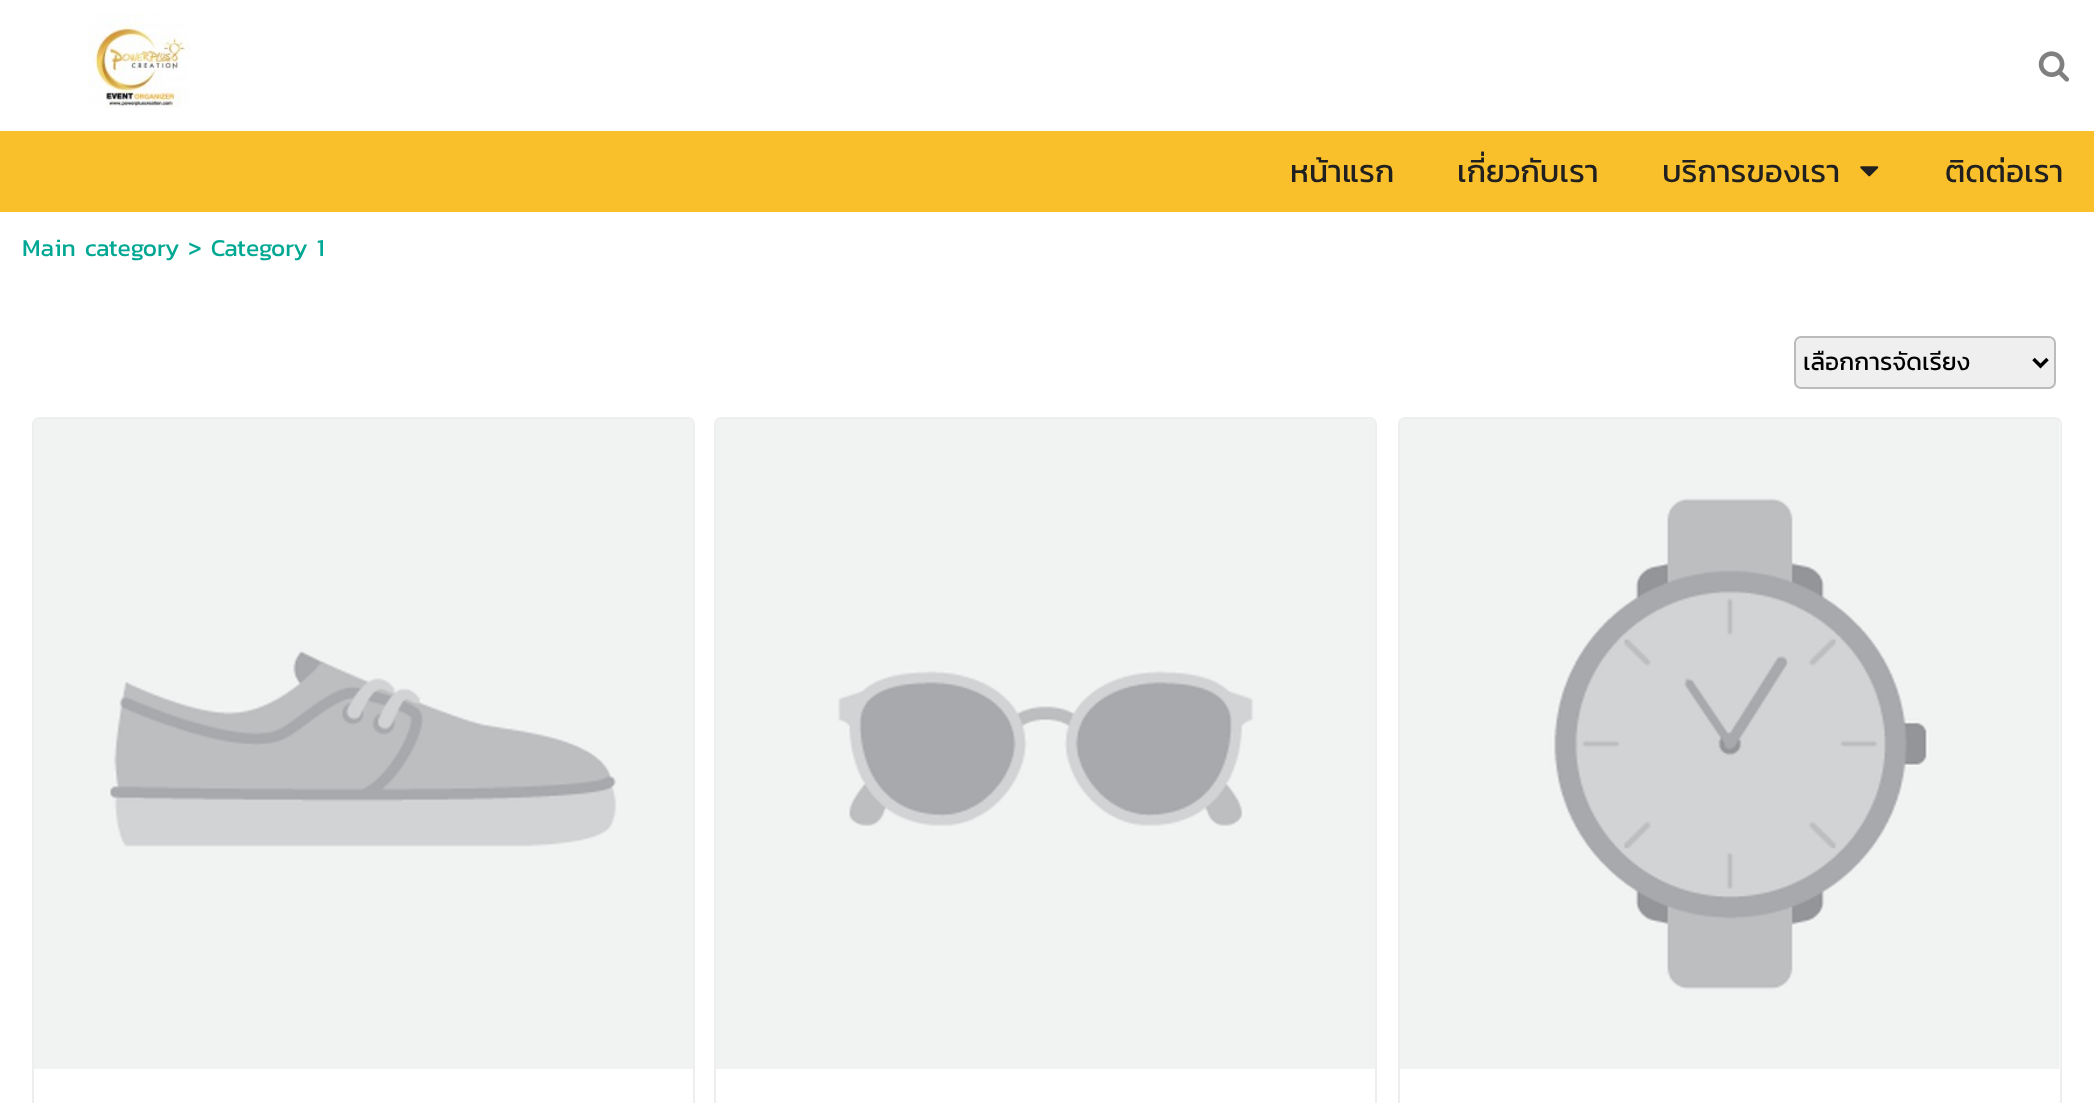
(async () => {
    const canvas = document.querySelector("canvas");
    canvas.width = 2094;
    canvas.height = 1103;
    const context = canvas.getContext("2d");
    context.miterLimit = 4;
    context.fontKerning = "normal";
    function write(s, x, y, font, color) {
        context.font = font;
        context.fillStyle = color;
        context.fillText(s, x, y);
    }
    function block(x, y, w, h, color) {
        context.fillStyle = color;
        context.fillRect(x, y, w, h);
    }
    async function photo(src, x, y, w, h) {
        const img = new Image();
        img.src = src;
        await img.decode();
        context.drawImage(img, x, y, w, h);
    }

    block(0, 0, 2094, 1103, "rgb(255, 255, 255)");
    await photo("media/1.png", 87, 14, 103, 94);
    await photo("media/2.png", 2038, 51, 32, 31);
    block(0, 131, 2094, 81, "rgb(250, 192, 44)");
    write("หน้าแรก", 1290, 182, "31.5px Kanit", "rgb(32, 32, 32)");
    write("เกี่ยวกับเรา", 1457, 182, "31.5px Kanit", "rgb(32, 32, 32)");
    write("บริการของเรา", 1662, 182, "31.5px Kanit", "rgb(32, 32, 32)");
    await photo("media/3.png", 1860, 166, 19, 11);
    write("ติดต่อเรา", 1945, 182, "31.5px Kanit", "rgb(32, 32, 32)");
    write("Main category > Category 1", 22, 256, "24.5px Kanit", "rgb(0, 168, 148)");
    context.fillStyle = "rgb(239, 239, 239)";
    context.beginPath();
    context.roundRect(1795, 337, 260, 51, 6);
    context.fill();
    context.strokeStyle = "rgb(187, 187, 187)";
    context.lineWidth = 2;
    context.stroke();
    context.beginPath();
    context.moveTo(2033.5, 359);
    context.lineTo(2040.5, 366);
    context.lineTo(2047.5, 359);
    context.strokeStyle = "rgb(0, 0, 0)";
    context.lineWidth = 3.5;
    context.stroke();
    context.save();
    context.beginPath();
    context.rect(1803, 343, 224, 40);
    context.clip();
    write("เลือกการจัดเรียง", 1803, 370, "24.5px Kanit", "rgb(0, 0, 0)");
    context.restore();
    context.beginPath();
    context.roundRect(33, 418, 661, 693, 6);
    context.strokeStyle = "rgb(238, 238, 238)";
    context.lineWidth = 2;
    context.stroke();
    await photo("media/4.png", 34, 419, 659, 650);
    context.beginPath();
    context.roundRect(715, 418, 661, 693, 6);
    context.stroke();
    await photo("media/5.png", 716, 419, 659, 650);
    context.beginPath();
    context.roundRect(1399, 418, 662, 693, 6);
    context.stroke();
    await photo("media/6.png", 1400, 419, 660, 650);
})();
